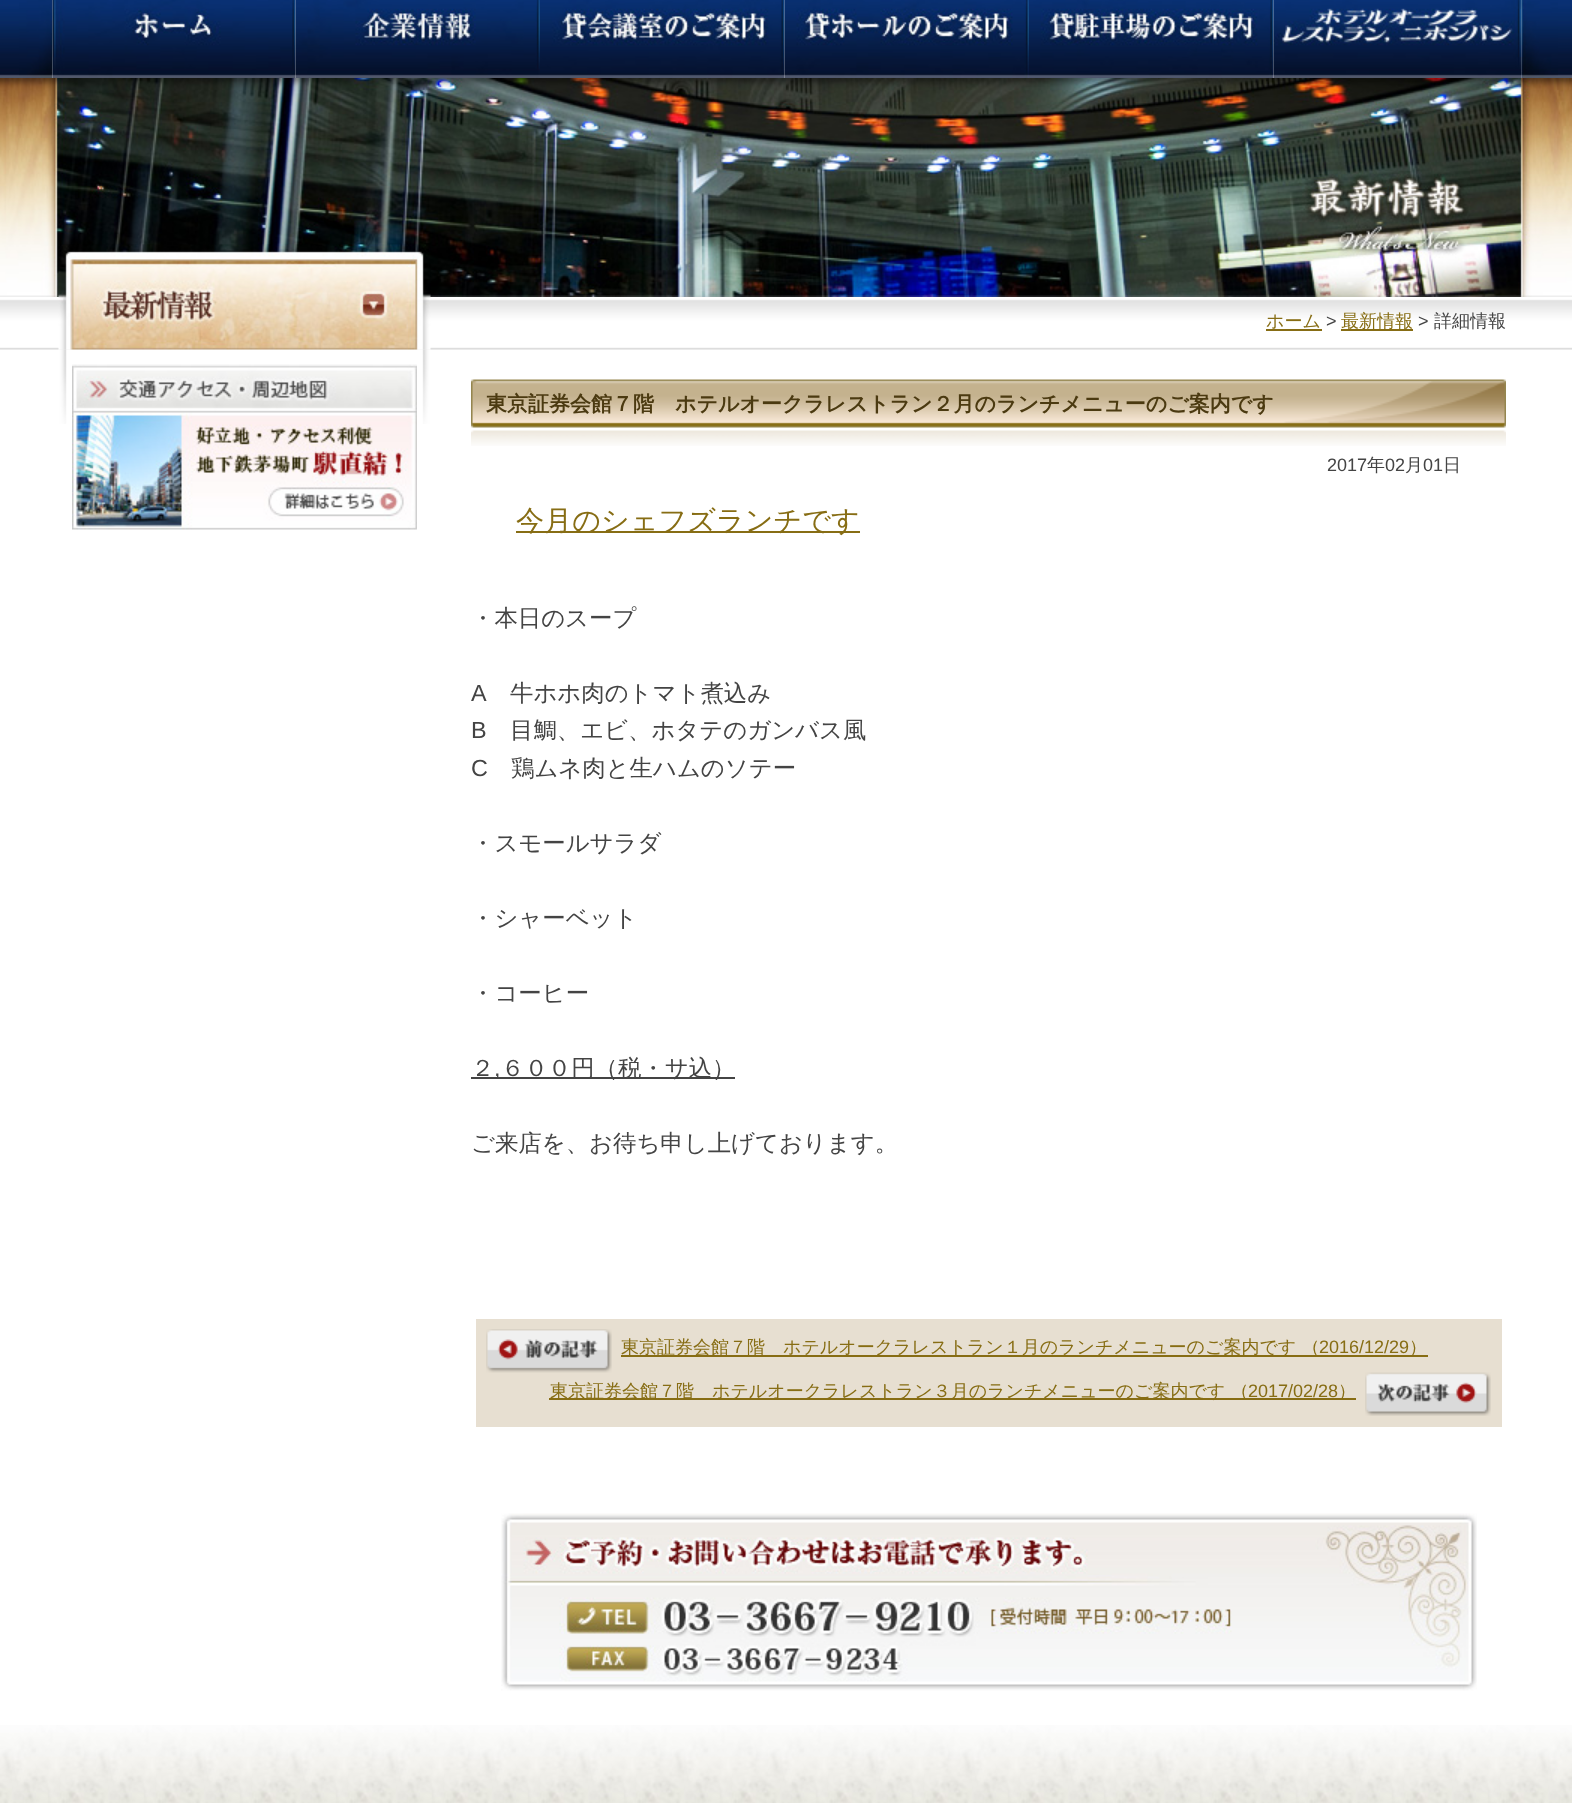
(async () => {
    const canvas = document.querySelector("canvas");
    canvas.width = 1572;
    canvas.height = 1803;
    const context = canvas.getContext("2d");
    context.miterLimit = 4;
    context.fontKerning = "normal";
    function write(s, x, y, font, color) {
        context.font = font;
        context.fillStyle = color;
        context.fillText(s, x, y);
    }
    function block(x, y, w, h, color) {
        context.fillStyle = color;
        context.fillRect(x, y, w, h);
    }
    async function photo(src, x, y, w, h) {
        const img = new Image();
        img.src = src;
        await img.decode();
        context.drawImage(img, x, y, w, h);
    }

    block(0, 0, 1572, 1803, "rgb(255, 255, 255)");
    await photo("media/1.png", 0, 0, 1572, 78);
    await photo("media/2.png", 19, 0, 1539, 78);
    await photo("media/3.png", 52, 0, 244, 78);
    await photo("media/4.png", 295, 0, 245, 78);
    await photo("media/5.png", 540, 0, 245, 78);
    await photo("media/6.png", 784, 0, 245, 78);
    await photo("media/7.png", 1029, 0, 245, 78);
    await photo("media/8.png", 1273, 0, 248, 78);
    await photo("media/9.png", 0, 78, 1572, 219);
    await photo("media/10.png", 0, 299, 1572, 51);
    write("ホーム", 1266, 327, "500 18px WenQuanYi Zen Hei", "rgb(135, 109, 20)");
    block(1266, 329, 56, 2, "rgb(135, 109, 20)");
    write(">", 1326, 327, "18px Liberation Sans", "rgb(68, 68, 68)");
    block(1341, 329, 72, 2, "rgb(135, 109, 20)");
    write("最新情報", 1341, 327, "500 18px WenQuanYi Zen Hei", "rgb(135, 109, 20)");
    write(">", 1418, 327, "18px Liberation Sans", "rgb(68, 68, 68)");
    write("詳細情報", 1434, 327, "500 18px WenQuanYi Zen Hei", "rgb(68, 68, 68)");
    await photo("media/11.png", 58, 349, 373, 75);
    await photo("media/12.png", 58, 244, 373, 106);
    await photo("media/13.png", 72, 364, 345, 166);
    await photo("media/14.png", 471, 379, 1035, 67);
    write("東京証券会館７階　ホテルオークラレストラン２月のランチメニューのご案内です", 486, 411, "bold 21px WenQuanYi Zen Hei", "rgb(75, 58, 17)");
    write("2017", 1327, 471, "18px Liberation Sans", "rgb(68, 68, 68)");
    write("年", 1367, 471, "500 18px WenQuanYi Zen Hei", "rgb(68, 68, 68)");
    write("02", 1385, 471, "18px Liberation Sans", "rgb(68, 68, 68)");
    write("月", 1405, 471, "500 18px WenQuanYi Zen Hei", "rgb(68, 68, 68)");
    write("01", 1423, 471, "18px Liberation Sans", "rgb(68, 68, 68)");
    write("日", 1443, 471, "500 18px WenQuanYi Zen Hei", "rgb(68, 68, 68)");
    block(516, 531, 344, 2, "rgb(135, 109, 20)");
    write("今月のシェフズランチです", 516, 530, "500 28.1px WenQuanYi Zen Hei", "rgb(135, 109, 20)");
    write("・本日のスープ", 471, 626, "500 23.4px WenQuanYi Zen Hei", "rgb(68, 68, 68)");
    write("A", 471, 701, "23.4px Liberation Sans", "rgb(68, 68, 68)");
    write("牛ホホ肉のトマト煮込み", 510, 701, "500 23.4px WenQuanYi Zen Hei", "rgb(68, 68, 68)");
    write("B", 471, 738, "23.4px Liberation Sans", "rgb(68, 68, 68)");
    write("目鯛、エビ、ホタテのガンバス風", 510, 738, "500 23.4px WenQuanYi Zen Hei", "rgb(68, 68, 68)");
    write("C", 471, 776, "23.4px Liberation Sans", "rgb(68, 68, 68)");
    write("鶏ムネ肉と生ハムのソテー", 511, 776, "500 23.4px WenQuanYi Zen Hei", "rgb(68, 68, 68)");
    write("・スモールサラダ", 471, 851, "500 23.4px WenQuanYi Zen Hei", "rgb(68, 68, 68)");
    write("・シャーベット", 471, 926, "500 23.4px WenQuanYi Zen Hei", "rgb(68, 68, 68)");
    write("・コーヒー", 471, 1001, "500 23.4px WenQuanYi Zen Hei", "rgb(68, 68, 68)");
    write("２", 471, 1076, "500 23.4px WenQuanYi Zen Hei", "rgb(68, 68, 68)");
    block(471, 1077, 264, 2, "rgb(68, 68, 68)");
    write(",", 494, 1076, "23.4px Liberation Sans", "rgb(68, 68, 68)");
    write("６００円（税・サ込）", 501, 1076, "500 23.4px WenQuanYi Zen Hei", "rgb(68, 68, 68)");
    write("ご来店を、お待ち申し上げております。", 471, 1151, "500 23.4px WenQuanYi Zen Hei", "rgb(68, 68, 68)");
    block(476, 1319, 1026, 108, "rgb(231, 223, 209)");
    await photo("media/15.png", 486, 1329, 126, 44);
    block(621, 1355, 807, 2, "rgb(135, 109, 20)");
    write("東京証券会館７階　ホテルオークラレストラン１月のランチメニューのご案内です （", 621, 1353, "500 18px WenQuanYi Zen Hei", "rgb(135, 109, 20)");
    write("2016/12/29", 1319, 1353, "18px Liberation Sans", "rgb(135, 109, 20)");
    write("）", 1409, 1353, "500 18px WenQuanYi Zen Hei", "rgb(135, 109, 20)");
    await photo("media/16.png", 1365, 1372, 126, 44);
    block(549, 1398, 807, 2, "rgb(135, 109, 20)");
    write("東京証券会館７階　ホテルオークラレストラン３月のランチメニューのご案内です （", 550, 1397, "500 18px WenQuanYi Zen Hei", "rgb(135, 109, 20)");
    write("2017/02/28", 1248, 1397, "18px Liberation Sans", "rgb(135, 109, 20)");
    write("）", 1338, 1397, "500 18px WenQuanYi Zen Hei", "rgb(135, 109, 20)");
    await photo("media/17.png", 501, 1513, 976, 178);
    await photo("media/18.png", 0, 1725, 1572, 78);
})();
